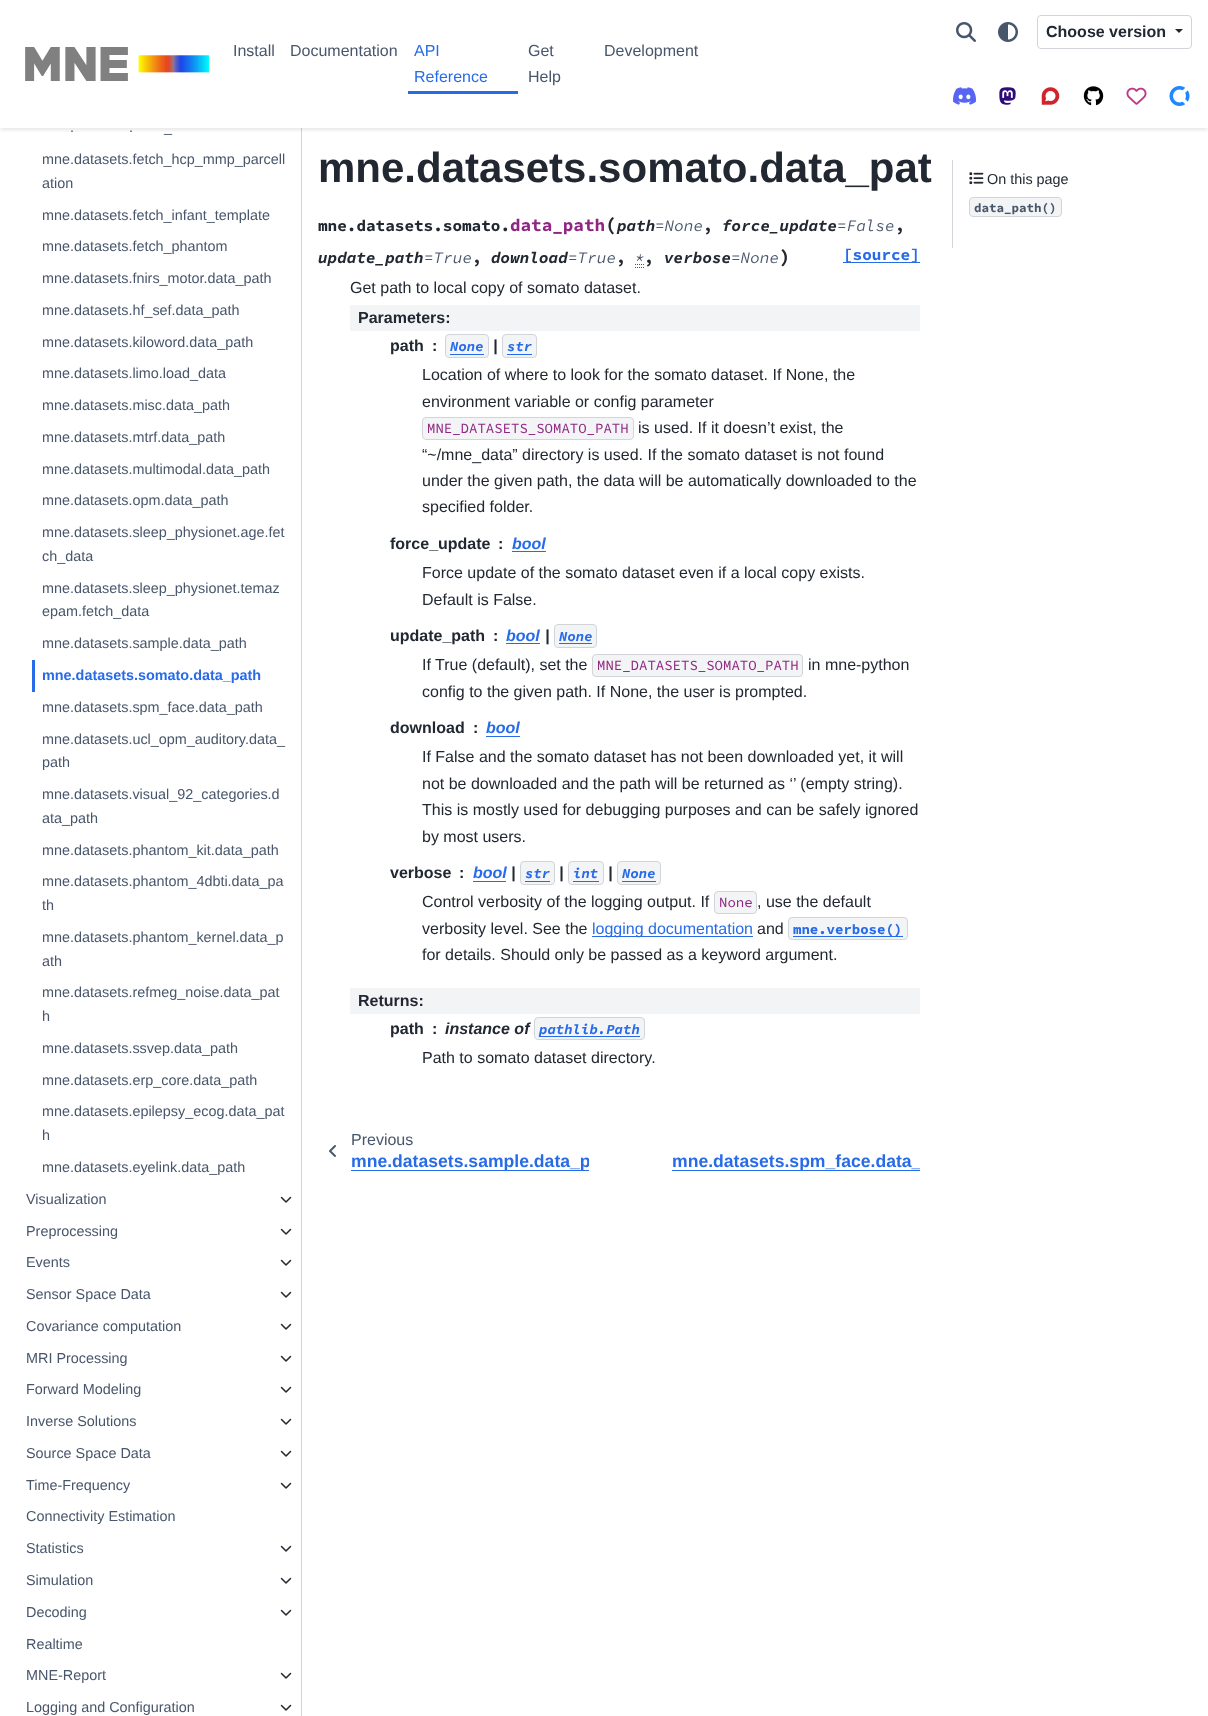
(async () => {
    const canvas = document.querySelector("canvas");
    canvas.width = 1208;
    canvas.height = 1716;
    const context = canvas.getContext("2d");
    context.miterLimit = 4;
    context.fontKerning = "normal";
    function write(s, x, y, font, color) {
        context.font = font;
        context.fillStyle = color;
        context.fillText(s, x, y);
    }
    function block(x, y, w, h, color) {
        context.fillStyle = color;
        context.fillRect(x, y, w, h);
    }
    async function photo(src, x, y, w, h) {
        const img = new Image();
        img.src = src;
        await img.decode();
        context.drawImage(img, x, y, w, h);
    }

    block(0, 0, 1208, 1716, "rgb(255, 255, 255)");
    block(301, 128, 1, 1588, "rgb(209, 213, 218)");
    context.save();
    context.beginPath();
    context.rect(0, 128, 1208, 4);
    context.clip();
    context.fillStyle = "rgba(0, 0, 0, 0.1)";
    context.filter = "blur(2px)";
    context.beginPath();
    context.rect(0, 2, 1208, 128);
    context.fill();
    context.filter = "none";
    context.restore();
    await photo("media/1.png", 25, 47, 185, 34);
    await photo("media/2.png", 956, 22, 20, 20);
    await photo("media/3.png", 998, 22, 20, 20);
    context.beginPath();
    context.roundRect(1037.5, 15.5, 154, 33, 3.5);
    context.strokeStyle = "rgb(209, 213, 218)";
    context.stroke();
    write("Choose version", 1046, 37, "bold 16px Liberation Sans", "rgb(34, 40, 50)");
    context.beginPath();
    context.moveTo(1175, 29);
    context.lineTo(1183, 29);
    context.lineTo(1179, 33);
    context.closePath();
    context.fill();
    await photo("media/4.png", 953, 87, 23, 18);
    await photo("media/5.png", 999, 87, 17, 18);
    await photo("media/6.png", 1041, 87, 19, 18);
    await photo("media/7.png", 1083, 86, 21, 20);
    await photo("media/8.png", 1126, 87, 21, 18);
    await photo("media/9.png", 1169, 86, 21, 20);
    write("Install", 233, 56, "16px Liberation Sans", "rgb(72, 86, 107)");
    write("Documentation", 290, 56, "16px Liberation Sans", "rgb(72, 86, 107)");
    write("API", 414, 56, "16px Liberation Sans", "rgb(39, 107, 233)");
    write("Reference", 414, 82, "16px Liberation Sans", "rgb(39, 107, 233)");
    block(408, 91, 110, 3, "rgb(39, 107, 233)");
    write("Get", 528, 56, "16px Liberation Sans", "rgb(72, 86, 107)");
    write("Help", 528, 82, "16px Liberation Sans", "rgb(72, 86, 107)");
    write("Development", 604, 56, "16px Liberation Sans", "rgb(72, 86, 107)");
    write(".", 70, 132, "14.4px Liberation Sans", "rgb(72, 86, 107)");
    write(".", 129, 132, "14.4px Liberation Sans", "rgb(72, 86, 107)");
    write("_", 164, 132, "14.4px Liberation Sans", "rgb(72, 86, 107)");
    write("mne.datasets.fetch_hcp_mmp_parcell", 42, 164, "14.4px Liberation Sans", "rgb(72, 86, 107)");
    write("ation", 42, 188, "14.4px Liberation Sans", "rgb(72, 86, 107)");
    write("mne.datasets.fetch_infant_template", 42, 220, "14.4px Liberation Sans", "rgb(72, 86, 107)");
    write("mne.datasets.fetch_phantom", 42, 251, "14.4px Liberation Sans", "rgb(72, 86, 107)");
    write("mne.datasets.fnirs_motor.data_path", 42, 283, "14.4px Liberation Sans", "rgb(72, 86, 107)");
    write("mne.datasets.hf_sef.data_path", 42, 315, "14.4px Liberation Sans", "rgb(72, 86, 107)");
    write("mne.datasets.kiloword.data_path", 42, 347, "14.4px Liberation Sans", "rgb(72, 86, 107)");
    write("mne.datasets.limo.load_data", 42, 378, "14.4px Liberation Sans", "rgb(72, 86, 107)");
    write("mne.datasets.misc.data_path", 42, 410, "14.4px Liberation Sans", "rgb(72, 86, 107)");
    write("mne.datasets.mtrf.data_path", 42, 442, "14.4px Liberation Sans", "rgb(72, 86, 107)");
    write("mne.datasets.multimodal.data_path", 42, 474, "14.4px Liberation Sans", "rgb(72, 86, 107)");
    write("mne.datasets.opm.data_path", 42, 505, "14.4px Liberation Sans", "rgb(72, 86, 107)");
    write("mne.datasets.sleep_physionet.age.fet", 42, 537, "14.4px Liberation Sans", "rgb(72, 86, 107)");
    write("ch_data", 42, 561, "14.4px Liberation Sans", "rgb(72, 86, 107)");
    write("mne.datasets.sleep_physionet.temaz", 42, 593, "14.4px Liberation Sans", "rgb(72, 86, 107)");
    write("epam.fetch_data", 42, 616, "14.4px Liberation Sans", "rgb(72, 86, 107)");
    write("mne.datasets.sample.data_path", 42, 648, "14.4px Liberation Sans", "rgb(72, 86, 107)");
    block(32, 660, 3, 32, "rgb(39, 107, 233)");
    write("mne.datasets.somato.data_path", 42, 680, "bold 14.4px Liberation Sans", "rgb(39, 107, 233)");
    write("mne.datasets.spm_face.data_path", 42, 712, "14.4px Liberation Sans", "rgb(72, 86, 107)");
    write("mne.datasets.ucl_opm_auditory.data_", 42, 744, "14.4px Liberation Sans", "rgb(72, 86, 107)");
    write("path", 42, 767, "14.4px Liberation Sans", "rgb(72, 86, 107)");
    write("mne.datasets.visual_92_categories.d", 42, 799, "14.4px Liberation Sans", "rgb(72, 86, 107)");
    write("ata_path", 42, 823, "14.4px Liberation Sans", "rgb(72, 86, 107)");
    write("mne.datasets.phantom_kit.data_path", 42, 855, "14.4px Liberation Sans", "rgb(72, 86, 107)");
    write("mne.datasets.phantom_4dbti.data_pa", 42, 886, "14.4px Liberation Sans", "rgb(72, 86, 107)");
    write("th", 42, 910, "14.4px Liberation Sans", "rgb(72, 86, 107)");
    write("mne.datasets.phantom_kernel.data_p", 42, 942, "14.4px Liberation Sans", "rgb(72, 86, 107)");
    write("ath", 42, 966, "14.4px Liberation Sans", "rgb(72, 86, 107)");
    write("mne.datasets.refmeg_noise.data_pat", 42, 997, "14.4px Liberation Sans", "rgb(72, 86, 107)");
    write("h", 42, 1021, "14.4px Liberation Sans", "rgb(72, 86, 107)");
    write("mne.datasets.ssvep.data_path", 42, 1053, "14.4px Liberation Sans", "rgb(72, 86, 107)");
    write("mne.datasets.erp_core.data_path", 42, 1085, "14.4px Liberation Sans", "rgb(72, 86, 107)");
    write("mne.datasets.epilepsy_ecog.data_pat", 42, 1116, "14.4px Liberation Sans", "rgb(72, 86, 107)");
    write("h", 42, 1140, "14.4px Liberation Sans", "rgb(72, 86, 107)");
    write("mne.datasets.eyelink.data_path", 42, 1172, "14.4px Liberation Sans", "rgb(72, 86, 107)");
    write("Visualization", 26, 1204, "14.4px Liberation Sans", "rgb(72, 86, 107)");
    await photo("media/10.png", 280, 1196, 12, 7);
    write("Preprocessing", 26, 1236, "14.4px Liberation Sans", "rgb(72, 86, 107)");
    await photo("media/10.png", 280, 1228, 12, 7);
    write("Events", 26, 1267, "14.4px Liberation Sans", "rgb(72, 86, 107)");
    await photo("media/10.png", 280, 1259, 12, 7);
    write("Sensor Space Data", 26, 1299, "14.4px Liberation Sans", "rgb(72, 86, 107)");
    await photo("media/10.png", 280, 1291, 12, 7);
    write("Covariance computation", 26, 1331, "14.4px Liberation Sans", "rgb(72, 86, 107)");
    await photo("media/10.png", 280, 1323, 12, 7);
    write("MRI Processing", 26, 1363, "14.4px Liberation Sans", "rgb(72, 86, 107)");
    await photo("media/10.png", 280, 1355, 12, 7);
    write("Forward Modeling", 26, 1394, "14.4px Liberation Sans", "rgb(72, 86, 107)");
    await photo("media/10.png", 280, 1386, 12, 7);
    write("Inverse Solutions", 26, 1426, "14.4px Liberation Sans", "rgb(72, 86, 107)");
    await photo("media/10.png", 280, 1418, 12, 7);
    write("Source Space Data", 26, 1458, "14.4px Liberation Sans", "rgb(72, 86, 107)");
    await photo("media/10.png", 280, 1450, 12, 7);
    write("Time-Frequency", 26, 1490, "14.4px Liberation Sans", "rgb(72, 86, 107)");
    await photo("media/10.png", 280, 1482, 12, 7);
    write("Connectivity Estimation", 26, 1521, "14.4px Liberation Sans", "rgb(72, 86, 107)");
    write("Statistics", 26, 1553, "14.4px Liberation Sans", "rgb(72, 86, 107)");
    await photo("media/10.png", 280, 1545, 12, 7);
    write("Simulation", 26, 1585, "14.4px Liberation Sans", "rgb(72, 86, 107)");
    await photo("media/10.png", 280, 1577, 12, 7);
    write("Decoding", 26, 1617, "14.4px Liberation Sans", "rgb(72, 86, 107)");
    await photo("media/10.png", 280, 1609, 12, 7);
    write("Realtime", 26, 1649, "14.4px Liberation Sans", "rgb(72, 86, 107)");
    write("MNE-Report", 26, 1680, "14.4px Liberation Sans", "rgb(72, 86, 107)");
    await photo("media/10.png", 280, 1672, 12, 7);
    write("Logging and Configuration", 26, 1712, "14.4px Liberation Sans", "rgb(72, 86, 107)");
    await photo("media/10.png", 280, 1704, 12, 7);
    write("mne.datasets.somato.data_pat", 318, 182, "bold 42px Liberation Sans", "rgb(34, 40, 50)");
    write("mne.datasets.somato.", 318, 231, "bold 16px Source Code Pro", "rgb(34, 40, 50)");
    write("data_path", 510, 231, "bold 17.6px Source Code Pro", "rgb(145, 37, 131)");
    write("(", 605, 231, "bold 19px Source Code Pro", "rgb(34, 40, 50)");
    write("path", 617, 231, "italic bold 16px Source Code Pro", "rgb(34, 40, 50)");
    write("=None", 655, 231, "italic 16px Source Code Pro", "rgb(72, 86, 107)");
    write(",", 703, 231, "bold 16px Source Code Pro", "rgb(34, 40, 50)");
    write("force_update", 722, 231, "italic bold 16px Source Code Pro", "rgb(34, 40, 50)");
    write("=False", 837, 231, "italic 16px Source Code Pro", "rgb(72, 86, 107)");
    write(",", 895, 231, "bold 16px Source Code Pro", "rgb(34, 40, 50)");
    write("update_path", 318, 263, "italic bold 16px Source Code Pro", "rgb(34, 40, 50)");
    write("=True", 424, 263, "italic 16px Source Code Pro", "rgb(72, 86, 107)");
    write("download", 491, 263, "italic bold 16px Source Code Pro", "rgb(34, 40, 50)");
    write("=True", 568, 263, "italic 16px Source Code Pro", "rgb(72, 86, 107)");
    write("*", 635, 263, "italic 16px Source Code Pro", "rgb(72, 86, 107)");
    context.beginPath();
    context.moveTo(635, 267.5);
    context.lineTo(644, 267.5);
    context.moveTo(635, 264.5);
    context.lineTo(644.5, 264.5);
    context.strokeStyle = "rgb(72, 86, 107)";
    context.setLineDash([1, 1]);
    context.stroke();
    write("verbose", 664, 263, "italic bold 16px Source Code Pro", "rgb(34, 40, 50)");
    write("=None", 731, 263, "italic 16px Source Code Pro", "rgb(72, 86, 107)");
    write(")", 779, 263, "bold 19px Source Code Pro", "rgb(34, 40, 50)");
    block(843, 262, 77, 1, "rgb(39, 107, 233)");
    write("[source]", 843, 260, "bold 16px Source Code Pro", "rgb(39, 107, 233)");
    write(",", 472, 263, "bold 16px Source Code Pro", "rgb(34, 40, 50)");
    write(",", 616, 263, "bold 16px Source Code Pro", "rgb(34, 40, 50)");
    write(",", 644, 263, "bold 16px Source Code Pro", "rgb(34, 40, 50)");
    write("Get path to local copy of somato dataset.", 350, 293, "16px Liberation Sans", "rgb(34, 40, 50)");
    block(350, 305, 570, 26, "rgb(243, 244, 245)");
    write("Parameters:", 358, 323, "bold 16px Liberation Sans", "rgb(34, 40, 50)");
    write("path", 390, 351, "bold 16px Liberation Sans", "rgb(34, 40, 50)");
    write(":", 432, 351, "bold 16px Liberation Sans", "rgb(34, 40, 50)");
    context.fillStyle = "rgb(243, 244, 245)";
    context.beginPath();
    context.roundRect(445.5, 334.5, 43, 23, 3.5);
    context.fill();
    context.strokeStyle = "rgb(209, 213, 218)";
    context.setLineDash([]);
    context.stroke();
    write("None", 450, 351, "italic bold 14px Source Code Pro", "rgb(39, 107, 233)");
    block(450, 354, 34, 1, "rgb(39, 107, 233)");
    write("|", 493, 351, "italic bold 16px Liberation Sans", "rgb(34, 40, 50)");
    context.fillStyle = "rgb(243, 244, 245)";
    context.beginPath();
    context.roundRect(502.5, 334.5, 34, 23, 3.5);
    context.fill();
    context.stroke();
    write("str", 507, 351, "italic bold 14px Source Code Pro", "rgb(39, 107, 233)");
    block(507, 354, 25, 1, "rgb(39, 107, 233)");
    write("Location of where to look for the somato dataset. If None, the", 422, 380, "16px Liberation Sans", "rgb(34, 40, 50)");
    write("environment variable or config parameter", 422, 407, "16px Liberation Sans", "rgb(34, 40, 50)");
    context.fillStyle = "rgb(243, 244, 245)";
    context.beginPath();
    context.roundRect(422.5, 417.5, 211, 22, 3.5);
    context.fill();
    context.stroke();
    write("MNE_DATASETS_SOMATO_PATH", 427, 433, "14px Source Code Pro", "rgb(145, 37, 131)");
    write("is used. If it doesn’t exist, the", 638, 433, "16px Liberation Sans", "rgb(34, 40, 50)");
    write("“~/mne_data” directory is used. If the somato dataset is not found", 422, 460, "16px Liberation Sans", "rgb(34, 40, 50)");
    write("under the given path, the data will be automatically downloaded to the", 422, 486, "16px Liberation Sans", "rgb(34, 40, 50)");
    write("specified folder.", 422, 512, "16px Liberation Sans", "rgb(34, 40, 50)");
    write("force_update", 390, 549, "bold 16px Liberation Sans", "rgb(34, 40, 50)");
    write(":", 498, 549, "bold 16px Liberation Sans", "rgb(34, 40, 50)");
    write("bool", 512, 549, "italic bold 16px Liberation Sans", "rgb(39, 107, 233)");
    block(512, 551, 34, 1, "rgb(39, 107, 233)");
    write("Force update of the somato dataset even if a local copy exists.", 422, 578, "16px Liberation Sans", "rgb(34, 40, 50)");
    write("Default is False.", 422, 605, "16px Liberation Sans", "rgb(34, 40, 50)");
    write("update_path", 390, 641, "bold 16px Liberation Sans", "rgb(34, 40, 50)");
    write(":", 493, 641, "bold 16px Liberation Sans", "rgb(34, 40, 50)");
    write("bool", 506, 641, "italic bold 16px Liberation Sans", "rgb(39, 107, 233)");
    block(506, 643, 34, 1, "rgb(39, 107, 233)");
    write("|", 545, 641, "italic bold 16px Liberation Sans", "rgb(34, 40, 50)");
    context.fillStyle = "rgb(243, 244, 245)";
    context.beginPath();
    context.roundRect(554.5, 624.5, 42, 23, 3.5);
    context.fill();
    context.stroke();
    write("None", 559, 641, "italic bold 14px Source Code Pro", "rgb(39, 107, 233)");
    block(559, 643, 33, 1, "rgb(39, 107, 233)");
    write("If True (default), set the", 422, 670, "16px Liberation Sans", "rgb(34, 40, 50)");
    context.fillStyle = "rgb(243, 244, 245)";
    context.beginPath();
    context.roundRect(592.5, 654.5, 210, 22, 3.5);
    context.fill();
    context.stroke();
    write("MNE_DATASETS_SOMATO_PATH", 597, 670, "14px Source Code Pro", "rgb(145, 37, 131)");
    write("in mne-python", 808, 670, "16px Liberation Sans", "rgb(34, 40, 50)");
    write("config to the given path. If None, the user is prompted.", 422, 697, "16px Liberation Sans", "rgb(34, 40, 50)");
    write("download", 390, 733, "bold 16px Liberation Sans", "rgb(34, 40, 50)");
    write(":", 473, 733, "bold 16px Liberation Sans", "rgb(34, 40, 50)");
    write("bool", 486, 733, "italic bold 16px Liberation Sans", "rgb(39, 107, 233)");
    block(486, 736, 34, 1, "rgb(39, 107, 233)");
    write("If False and the somato dataset has not been downloaded yet, it will", 422, 762, "16px Liberation Sans", "rgb(34, 40, 50)");
    write("not be downloaded and the path will be returned as ‘’ (empty string).", 422, 789, "16px Liberation Sans", "rgb(34, 40, 50)");
    write("This is mostly used for debugging purposes and can be safely ignored", 422, 815, "16px Liberation Sans", "rgb(34, 40, 50)");
    write("by most users.", 422, 842, "16px Liberation Sans", "rgb(34, 40, 50)");
    write("verbose", 390, 878, "bold 16px Liberation Sans", "rgb(34, 40, 50)");
    write(":", 459, 878, "bold 16px Liberation Sans", "rgb(34, 40, 50)");
    write("bool", 473, 878, "italic bold 16px Liberation Sans", "rgb(39, 107, 233)");
    block(473, 881, 33, 1, "rgb(39, 107, 233)");
    write("|", 511, 878, "italic bold 16px Liberation Sans", "rgb(34, 40, 50)");
    context.fillStyle = "rgb(243, 244, 245)";
    context.beginPath();
    context.roundRect(520.5, 861.5, 34, 23, 3.5);
    context.fill();
    context.stroke();
    write("str", 525, 878, "italic bold 14px Source Code Pro", "rgb(39, 107, 233)");
    block(525, 881, 25, 1, "rgb(39, 107, 233)");
    write("|", 559, 878, "italic bold 16px Liberation Sans", "rgb(34, 40, 50)");
    context.fillStyle = "rgb(243, 244, 245)";
    context.beginPath();
    context.roundRect(568.5, 861.5, 35, 23, 3.5);
    context.fill();
    context.stroke();
    write("int", 573, 878, "italic bold 14px Source Code Pro", "rgb(39, 107, 233)");
    block(573, 881, 26, 1, "rgb(39, 107, 233)");
    write("|", 608, 878, "italic bold 16px Liberation Sans", "rgb(34, 40, 50)");
    context.fillStyle = "rgb(243, 244, 245)";
    context.beginPath();
    context.roundRect(617.5, 861.5, 43, 23, 3.5);
    context.fill();
    context.stroke();
    write("None", 622, 878, "italic bold 14px Source Code Pro", "rgb(39, 107, 233)");
    block(622, 881, 34, 1, "rgb(39, 107, 233)");
    write("Control verbosity of the logging output. If", 422, 907, "16px Liberation Sans", "rgb(34, 40, 50)");
    context.fillStyle = "rgb(243, 244, 245)";
    context.beginPath();
    context.roundRect(714.5, 891.5, 42, 22, 3.5);
    context.fill();
    context.stroke();
    write("None", 719, 907, "14px Source Code Pro", "rgb(145, 37, 131)");
    write(", use the default", 757, 907, "16px Liberation Sans", "rgb(34, 40, 50)");
    write("verbosity level. See the", 422, 934, "16px Liberation Sans", "rgb(34, 40, 50)");
    block(592, 936, 161, 1, "rgb(39, 107, 233)");
    write("logging documentation", 592, 934, "16px Liberation Sans", "rgb(39, 107, 233)");
    write("and", 757, 934, "16px Liberation Sans", "rgb(34, 40, 50)");
    context.fillStyle = "rgb(243, 244, 245)";
    context.beginPath();
    context.roundRect(788.5, 917.5, 119, 22, 3.5);
    context.fill();
    context.stroke();
    block(793, 936, 110, 1, "rgb(39, 107, 233)");
    write("mne.verbose()", 793, 934, "bold 14px Source Code Pro", "rgb(39, 107, 233)");
    write("for details. Should only be passed as a keyword argument.", 422, 960, "16px Liberation Sans", "rgb(34, 40, 50)");
    block(350, 988, 570, 26, "rgb(243, 244, 245)");
    write("Returns:", 358, 1006, "bold 16px Liberation Sans", "rgb(34, 40, 50)");
    write("path", 390, 1034, "bold 16px Liberation Sans", "rgb(34, 40, 50)");
    write(":", 432, 1034, "bold 16px Liberation Sans", "rgb(34, 40, 50)");
    write("instance of", 445, 1034, "italic bold 16px Liberation Sans", "rgb(34, 40, 50)");
    context.fillStyle = "rgb(243, 244, 245)";
    context.beginPath();
    context.roundRect(534.5, 1017.5, 110, 22, 3.5);
    context.fill();
    context.stroke();
    block(539, 1036, 101, 1, "rgb(39, 107, 233)");
    write("pathlib.Path", 539, 1034, "italic bold 14px Source Code Pro", "rgb(39, 107, 233)");
    write("Path to somato dataset directory.", 422, 1063, "16px Liberation Sans", "rgb(34, 40, 50)");
    await photo("media/11.png", 329, 1145, 7, 12);
    write("Previous", 351, 1145, "16px Liberation Sans", "rgb(72, 86, 107)");
    block(351, 1170, 238, 1, "rgb(39, 107, 233)");
    context.save();
    context.beginPath();
    context.rect(318, 1120, 271, 63);
    context.clip();
    write("mne.datasets.sample.data_p", 351, 1167, "bold 17.6px Liberation Sans", "rgb(39, 107, 233)");
    context.restore();
    block(672, 1170, 248, 1, "rgb(39, 107, 233)");
    context.save();
    context.beginPath();
    context.rect(649, 1120, 271, 63);
    context.clip();
    write("mne.datasets.spm_face.data_", 672, 1167, "bold 17.6px Liberation Sans", "rgb(39, 107, 233)");
    context.restore();
    block(952, 160, 1, 88, "rgb(209, 213, 218)");
    await photo("media/12.png", 969, 172, 15, 13);
    write("On this page", 987, 184, "14.4px Liberation Sans", "rgb(34, 40, 50)");
    context.fillStyle = "rgb(243, 244, 245)";
    context.beginPath();
    context.roundRect(969.5, 197.5, 92, 19, 3.5);
    context.fill();
    context.stroke();
    write("data_path()", 974, 212, "bold 12.5px Source Code Pro", "rgb(72, 86, 107)");
})();
